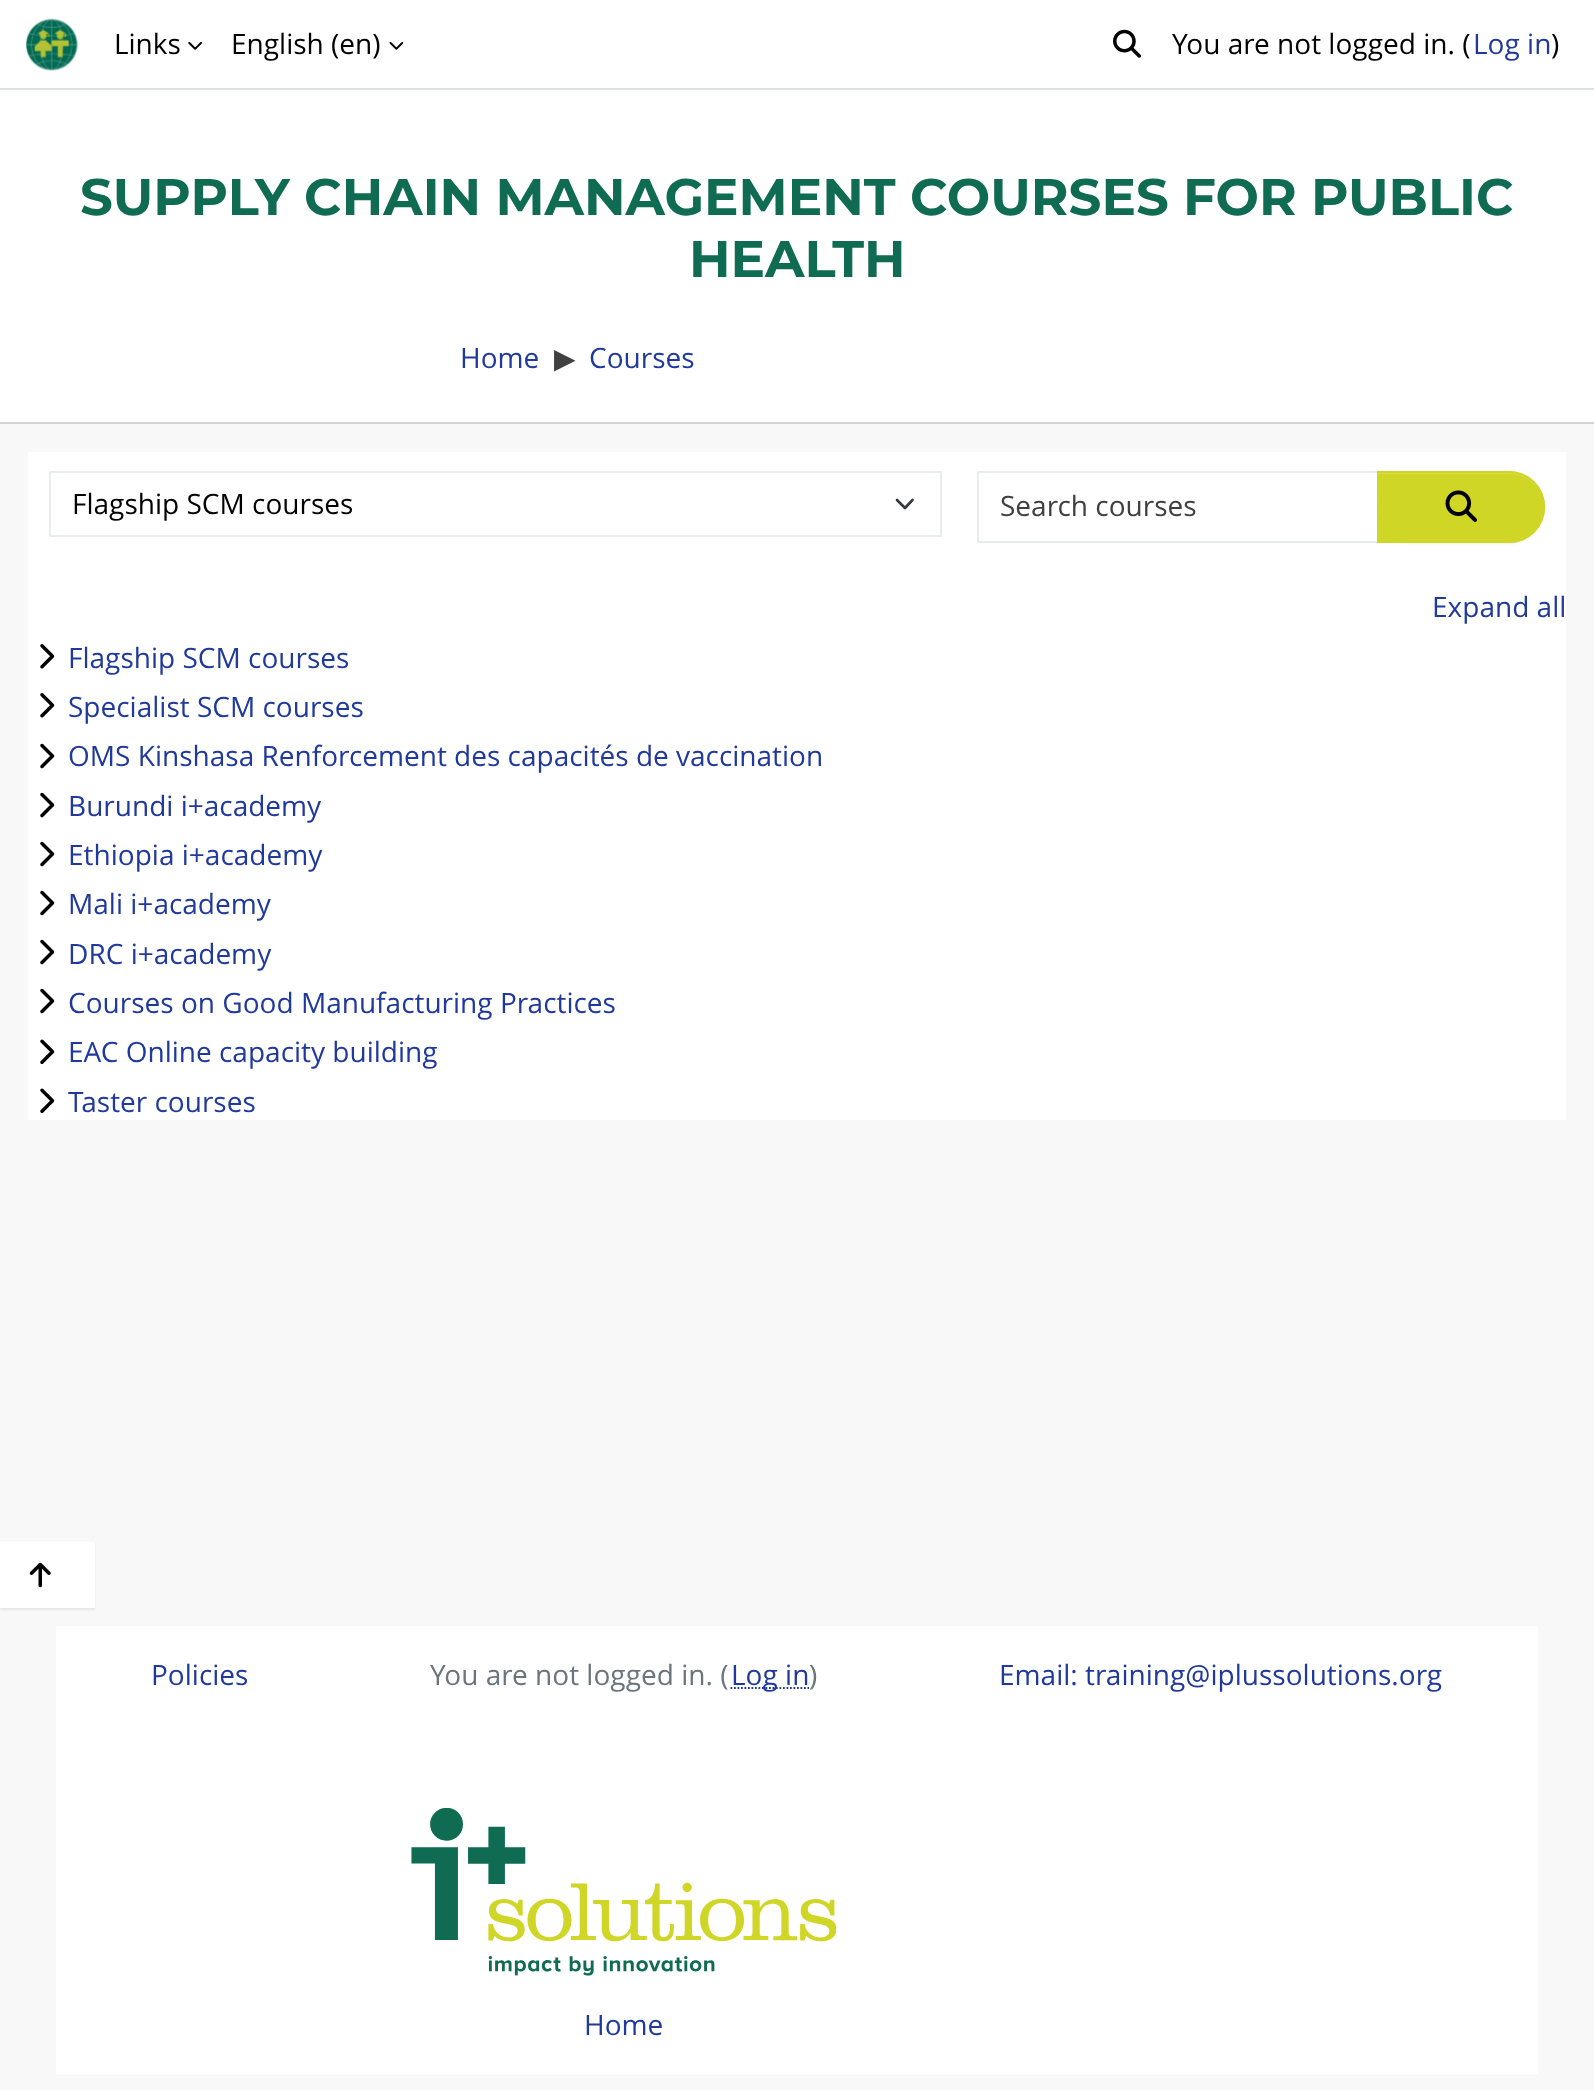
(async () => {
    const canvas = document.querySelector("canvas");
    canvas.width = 1594;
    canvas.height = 2090;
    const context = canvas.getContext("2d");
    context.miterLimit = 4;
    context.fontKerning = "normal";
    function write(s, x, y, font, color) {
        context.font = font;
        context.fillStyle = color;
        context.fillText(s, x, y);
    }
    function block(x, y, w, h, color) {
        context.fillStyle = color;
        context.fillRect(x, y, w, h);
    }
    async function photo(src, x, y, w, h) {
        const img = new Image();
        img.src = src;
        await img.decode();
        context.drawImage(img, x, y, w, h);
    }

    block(0, 0, 1594, 2090, "rgb(248, 248, 248)");
    block(0, 0, 1594, 88, "rgb(255, 255, 255)");
    block(0, 88, 1594, 2, "rgb(222, 226, 230)");
    await photo("media/1.png", 25, 18, 53, 53);
    write("Links", 114, 54, "28px Open Sans", "rgb(0, 0, 0)");
    await photo("media/2.png", 188, 41, 14, 9);
    write("English (en)", 231, 54, "28px Open Sans", "rgb(0, 0, 0)");
    await photo("media/3.png", 389, 41, 15, 9);
    await photo("media/4.png", 1113, 29, 28, 29);
    write("You are not logged in. (", 1172, 54, "28px Open Sans", "rgb(0, 0, 0)");
    write("Log in", 1473, 54, "28px Open Sans", "rgb(32, 57, 157)");
    write(")", 1551, 54, "28px Open Sans", "rgb(0, 0, 0)");
    block(0, 90, 1594, 332, "rgb(255, 255, 255)");
    block(0, 422, 1594, 2, "rgb(211, 211, 211)");
    context.wordSpacing = "-0.25px";
    write("SUPPLY CHAIN MANAGEMENT COURSES FOR PUBLIC", 80, 215, "bold 51.45px Montserrat", "rgb(15, 107, 82)");
    context.wordSpacing = "0px";
    write("HEALTH", 689, 277, "bold 51.45px Montserrat", "rgb(15, 107, 82)");
    write("Home", 460, 368, "28px Open Sans", "rgb(32, 57, 157)");
    write("▶", 554, 368, "28px DejaVu Sans", "rgb(64, 64, 64)");
    write("Courses", 589, 368, "28px Open Sans", "rgb(32, 57, 157)");
    block(28, 452, 1538, 668, "rgb(255, 255, 255)");
    context.beginPath();
    context.moveTo(897, 500);
    context.lineTo(905, 508);
    context.lineTo(912.5, 500);
    context.strokeStyle = "rgb(55, 58, 60)";
    context.lineWidth = 2.6;
    context.lineCap = "round";
    context.lineJoin = "round";
    context.stroke();
    context.strokeStyle = "rgb(233, 236, 239)";
    context.lineWidth = 2;
    context.lineJoin = "miter";
    context.strokeRect(50, 472, 891, 64);
    write("Flagship SCM courses", 72, 514, "28px Open Sans", "rgb(0, 0, 0)");
    context.strokeRect(978, 472, 404, 70);
    write("Search courses", 1000, 516, "28px Open Sans", "rgb(64, 64, 64)");
    context.fillStyle = "rgba(0, 0, 0, 0.07)";
    context.filter = "blur(1px)";
    context.beginPath();
    context.roundRect(1377, 473, 168, 71, 35.5);
    context.fill();
    context.filter = "none";
    context.fillStyle = "rgb(207, 214, 38)";
    context.beginPath();
    context.roundRect(1377, 471, 168, 72, [0, 36, 36, 0]);
    context.fill();
    context.fillStyle = "rgb(214, 220, 71)";
    context.beginPath();
    context.moveTo(1379, 474);
    context.lineTo(1509, 474);
    context.bezierCurveTo(1528, 474, 1544, 490, 1544, 508);
    context.lineTo(1544, 507);
    context.bezierCurveTo(1544, 488, 1529, 473, 1510, 473);
    context.lineTo(1379, 473);
    context.closePath();
    context.fill();
    context.beginPath();
    context.roundRect(1378, 472, 166, 70, [0, 35, 35, 0]);
    context.strokeStyle = "rgb(207, 214, 38)";
    context.stroke();
    await photo("media/5.png", 1445, 490, 32, 32);
    write("Expand all", 1432, 617, "28px Open Sans", "rgb(32, 57, 157)");
    await photo("media/6.png", 40, 644, 15, 25);
    write("Flagship SCM courses", 68, 668, "28px Open Sans", "rgb(32, 57, 157)");
    await photo("media/6.png", 40, 693, 15, 25);
    write("Specialist SCM courses", 68, 717, "28px Open Sans", "rgb(32, 57, 157)");
    await photo("media/7.png", 40, 743, 15, 26);
    write("OMS Kinshasa Renforcement des capacités de vaccination", 68, 766, "28px Open Sans", "rgb(32, 57, 157)");
    await photo("media/8.png", 40, 792, 15, 26);
    write("Burundi i+academy", 68, 816, "28px Open Sans", "rgb(32, 57, 157)");
    await photo("media/8.png", 40, 841, 15, 26);
    write("Ethiopia i+academy", 68, 865, "28px Open Sans", "rgb(32, 57, 157)");
    await photo("media/8.png", 40, 890, 15, 26);
    write("Mali i+academy", 68, 914, "28px Open Sans", "rgb(32, 57, 157)");
    await photo("media/8.png", 40, 939, 15, 26);
    write("DRC i+academy", 68, 964, "28px Open Sans", "rgb(32, 57, 157)");
    await photo("media/8.png", 40, 988, 15, 26);
    write("Courses on Good Manufacturing Practices", 68, 1013, "28px Open Sans", "rgb(32, 57, 157)");
    await photo("media/9.png", 40, 1039, 15, 25);
    write("EAC Online capacity building", 68, 1062, "28px Open Sans", "rgb(32, 57, 157)");
    await photo("media/9.png", 40, 1088, 15, 25);
    write("Taster courses", 68, 1112, "28px Open Sans", "rgb(32, 57, 157)");
    context.fillStyle = "rgba(0, 0, 0, 0.07)";
    context.filter = "blur(1px)";
    context.beginPath();
    context.rect(0, 1544, 95, 66);
    context.fill();
    context.filter = "none";
    block(0, 1542, 95, 66, "rgb(255, 255, 255)");
    await photo("media/10.png", 29, 1562, 22, 26);
    block(56, 1626, 1482, 448, "rgb(255, 255, 255)");
    write("Policies", 151, 1685, "28px Open Sans", "rgb(32, 57, 157)");
    write("You are not logged in. (", 430, 1685, "28px Open Sans", "rgb(108, 117, 125)");
    context.beginPath();
    context.moveTo(730.5, 1688);
    context.lineTo(809, 1688);
    context.strokeStyle = "rgb(32, 57, 157)";
    context.lineWidth = 1.8;
    context.lineCap = "butt";
    context.setLineDash([1.75, 1.75]);
    context.stroke();
    write("Log in", 731, 1685, "28px Open Sans", "rgb(32, 57, 157)");
    write(")", 809, 1685, "28px Open Sans", "rgb(108, 117, 125)");
    await photo("media/11.png", 411, 1808, 426, 168);
    write("Home", 584, 2035, "28px Open Sans", "rgb(32, 57, 157)");
    write("Email: training@iplussolutions.org", 999, 1685, "28px Open Sans", "rgb(32, 57, 157)");
})();
